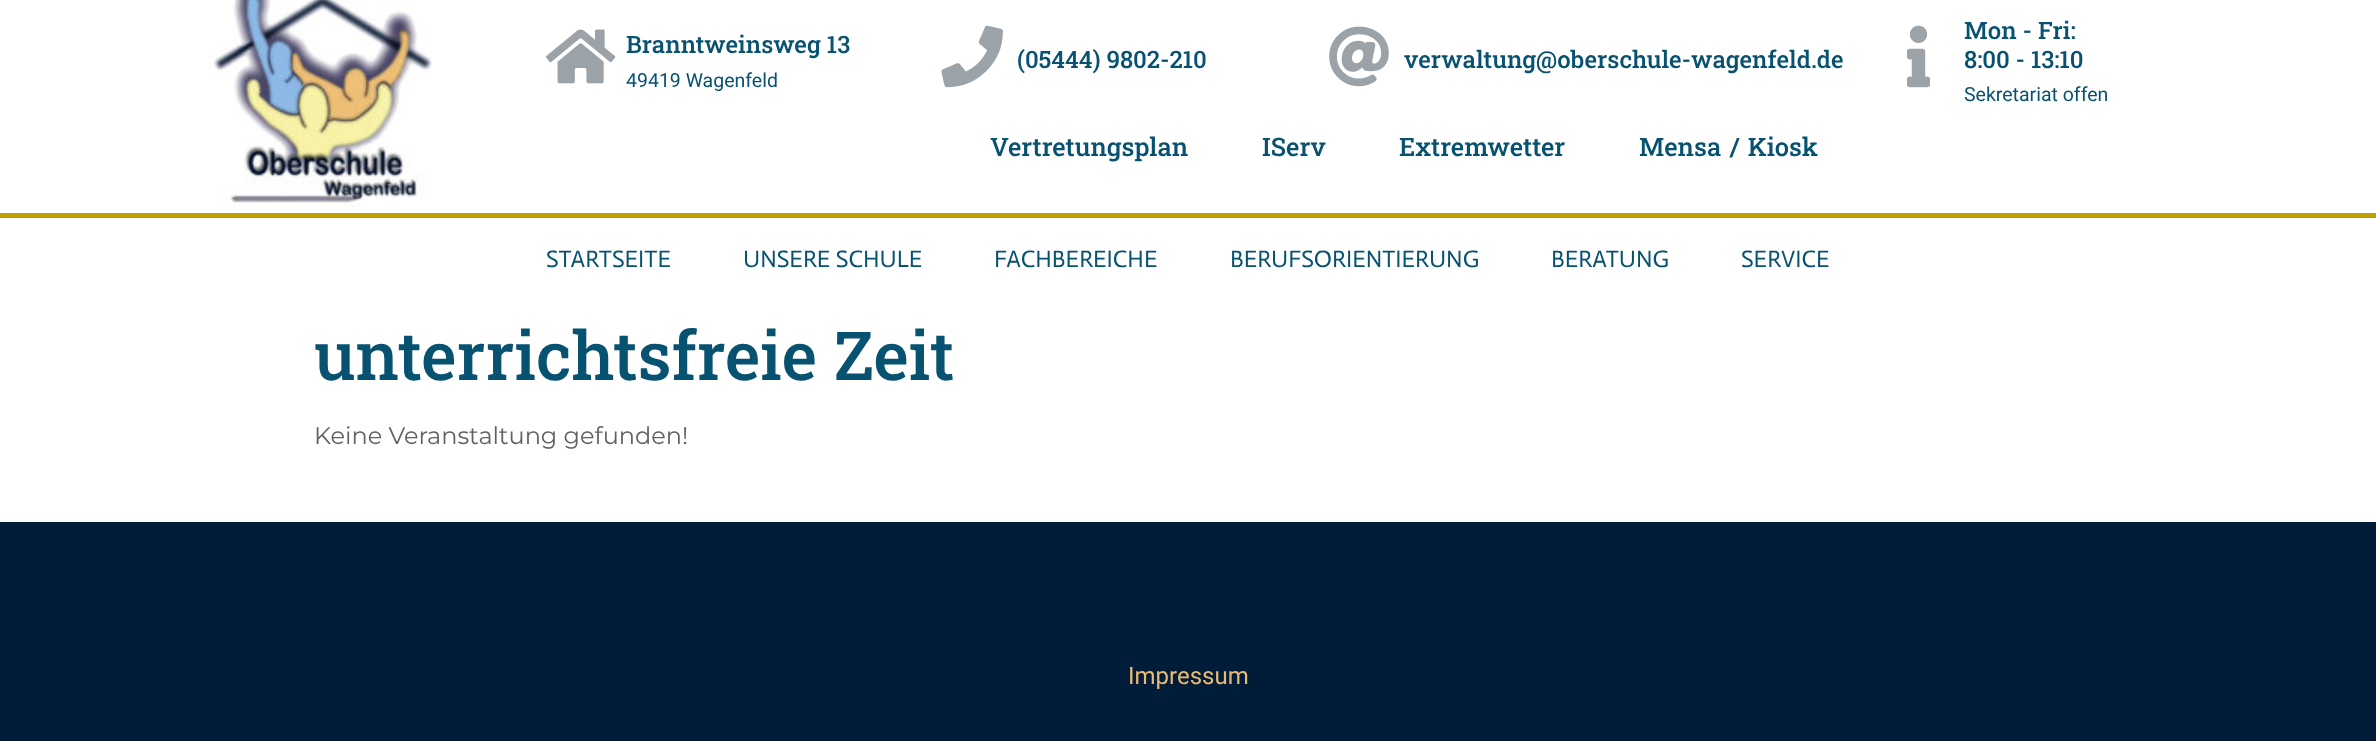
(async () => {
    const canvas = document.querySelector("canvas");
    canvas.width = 2376;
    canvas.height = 741;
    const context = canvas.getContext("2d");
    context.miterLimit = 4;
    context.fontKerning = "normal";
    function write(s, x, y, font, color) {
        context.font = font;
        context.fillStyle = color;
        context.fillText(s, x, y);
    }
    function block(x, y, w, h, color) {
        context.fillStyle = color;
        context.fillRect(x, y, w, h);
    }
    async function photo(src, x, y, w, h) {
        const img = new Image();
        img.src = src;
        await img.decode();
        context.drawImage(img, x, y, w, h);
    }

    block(0, 0, 2376, 741, "rgb(255, 255, 255)");
    await photo("media/1.png", 208, 0, 224, 207);
    await photo("media/2.png", 546, 29, 70, 55);
    write("Branntweinsweg 13", 626, 53, "500 24px Roboto Slab", "rgb(7, 81, 113)");
    write("49419 Wagenfeld", 626, 87, "19.5px Roboto", "rgb(7, 81, 113)");
    await photo("media/3.png", 941, 25, 62, 63);
    write("(05444) 9802-210", 1017, 68, "500 24px Roboto Slab", "rgb(7, 81, 113)");
    await photo("media/4.png", 1329, 26, 60, 61);
    write("verwaltung@oberschule-wagenfeld.de", 1404, 68, "500 24px Roboto Slab", "rgb(7, 81, 113)");
    await photo("media/5.png", 1907, 25, 23, 63);
    write("Mon - Fri:", 1964, 39, "500 24px Roboto Slab", "rgb(7, 81, 113)");
    write("8:00 - 13:10", 1964, 68, "500 24px Roboto Slab", "rgb(7, 81, 113)");
    write("Sekretariat offen", 1964, 101, "19.5px Roboto", "rgb(7, 81, 113)");
    write("Vertretungsplan", 990, 156, "500 25.5px Roboto Slab", "rgb(7, 81, 113)");
    write("IServ", 1262, 156, "500 25.5px Roboto Slab", "rgb(7, 81, 113)");
    write("Extremwetter", 1399, 156, "500 25.5px Roboto Slab", "rgb(7, 81, 113)");
    context.wordSpacing = "2px";
    write("Mensa / Kiosk", 1639, 156, "500 25.5px Roboto Slab", "rgb(7, 81, 113)");
    block(0, 213, 2376, 5, "rgb(191, 159, 0)");
    context.wordSpacing = "0px";
    write("STARTSEITE", 546, 267, "24px Actor", "rgb(7, 81, 113)");
    write("UNSERE SCHULE", 743, 267, "24px Actor", "rgb(7, 81, 113)");
    write("FACHBEREICHE", 994, 267, "24px Actor", "rgb(7, 81, 113)");
    write("BERUFSORIENTIERUNG", 1230, 267, "24px Actor", "rgb(7, 81, 113)");
    write("BERATUNG", 1551, 267, "24px Actor", "rgb(7, 81, 113)");
    write("SERVICE", 1741, 267, "24px Actor", "rgb(7, 81, 113)");
    write("unterrichtsfreie Zeit", 314, 380, "500 67.5px Roboto Slab", "rgb(7, 81, 113)");
    write("Keine Veranstaltung gefunden!", 314, 444, "24px Montserrat", "rgb(98, 98, 98)");
    block(0, 522, 2376, 219, "rgb(0, 28, 56)");
    write("Impressum", 1128, 684, "24px Roboto", "rgb(233, 186, 116)");
})();
